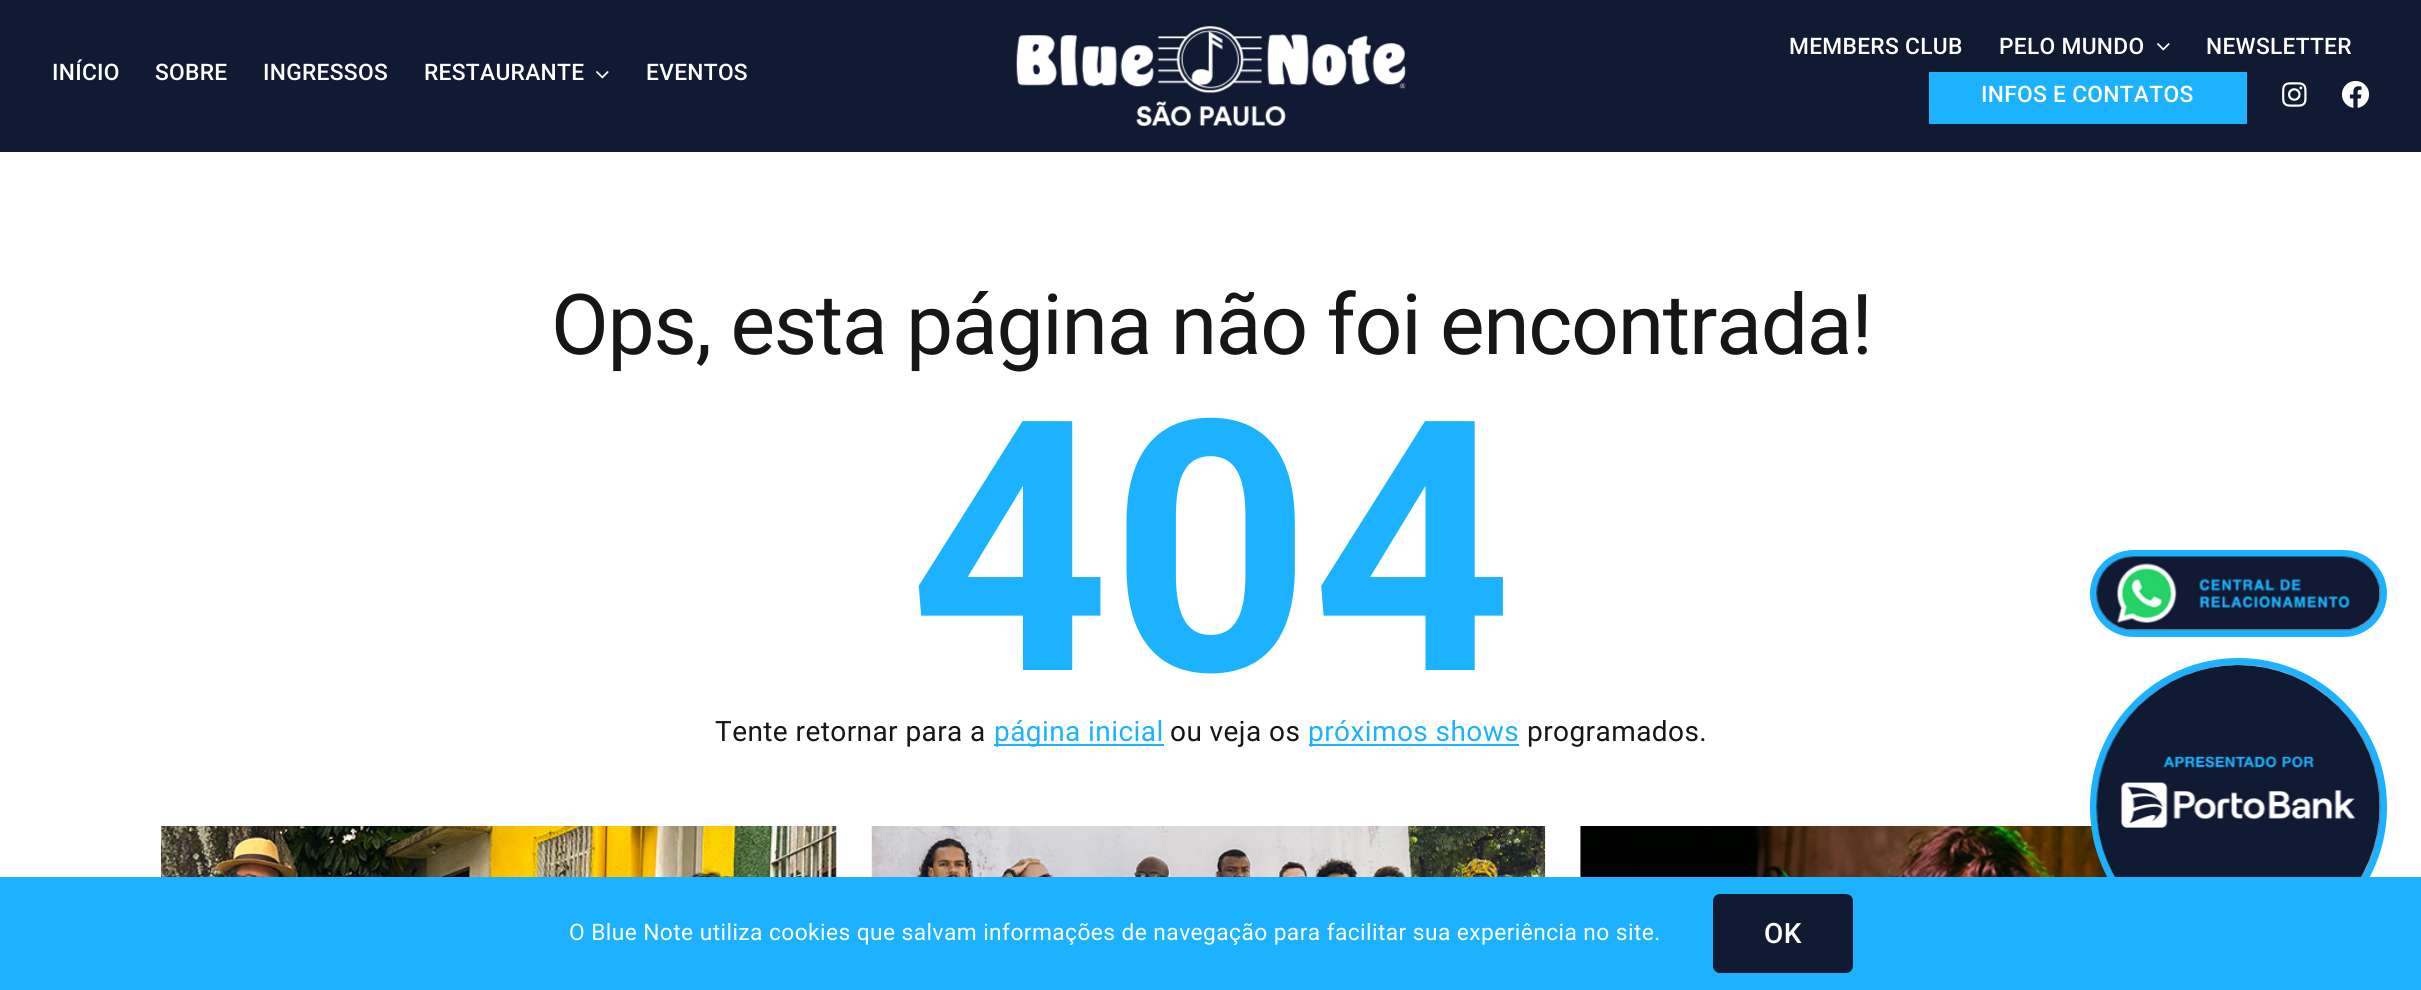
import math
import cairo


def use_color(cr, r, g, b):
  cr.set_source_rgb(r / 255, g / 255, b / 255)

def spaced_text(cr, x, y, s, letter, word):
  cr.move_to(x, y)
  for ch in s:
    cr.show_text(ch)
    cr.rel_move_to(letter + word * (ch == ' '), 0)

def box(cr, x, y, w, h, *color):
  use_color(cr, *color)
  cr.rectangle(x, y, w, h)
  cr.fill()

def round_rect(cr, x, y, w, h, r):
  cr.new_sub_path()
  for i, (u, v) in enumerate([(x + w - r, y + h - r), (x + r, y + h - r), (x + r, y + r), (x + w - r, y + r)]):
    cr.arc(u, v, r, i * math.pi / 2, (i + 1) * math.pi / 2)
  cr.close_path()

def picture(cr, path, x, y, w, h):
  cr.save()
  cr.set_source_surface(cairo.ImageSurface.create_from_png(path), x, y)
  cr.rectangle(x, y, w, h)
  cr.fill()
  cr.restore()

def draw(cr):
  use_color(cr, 255, 255, 255)
  cr.paint()
  box(cr, 0, 0, 2421, 152, 17, 26, 51)
  picture(cr, "img_01.png", 596, 71, 13, 8)
  picture(cr, "img_02.png", 1016, 26, 390, 100)
  picture(cr, "img_01.png", 2157, 43, 13, 8)
  box(cr, 1929, 72, 318, 52, 29, 178, 255)
  picture(cr, "img_03.png", 2282, 82, 25, 25)
  picture(cr, "img_04.png", 2341, 80, 29, 28)
  box(cr, 994, 744, 170, 2, 29, 178, 255)
  box(cr, 1309, 744, 210, 2, 29, 178, 255)
  picture(cr, "img_05.png", 161, 826, 676, 51)
  picture(cr, "img_06.png", 871, 826, 675, 51)
  picture(cr, "img_07.png", 1580, 826, 536, 51)
  round_rect(cr, 2093.5, 553.5, 290, 80, 40)
  cr.set_line_width(7)
  cr.stroke()
  picture(cr, "img_08.png", 2096, 556, 285, 75)
  round_rect(cr, 2093.5, 661.5, 290, 291, 145)
  cr.stroke()
  picture(cr, "img_09.png", 2096, 665, 285, 212)
  box(cr, 0, 877, 2421, 113, 29, 178, 255)
  use_color(cr, 17, 26, 51)
  round_rect(cr, 1713, 894, 140, 79, 7)
  cr.fill()
  cr.select_font_face("Roboto Medium")
  cr.set_font_size(22.75)
  use_color(cr, 255, 255, 255)
  spaced_text(cr, 52, 80, "INÍCIO", 0.3, 0)
  spaced_text(cr, 155, 80, "SOBRE", 0.3, 0)
  spaced_text(cr, 263, 80, "INGRESSOS", 0.3, 0)
  spaced_text(cr, 424, 80, "RESTAURANTE", 0.3, 0)
  spaced_text(cr, 646, 80, "EVENTOS", 0.3, 0)
  spaced_text(cr, 1789, 54, "MEMBERS CLUB", 0.3, 0)
  spaced_text(cr, 1999, 54, "PELO MUNDO", 0.3, 0)
  spaced_text(cr, 2206, 54, "NEWSLETTER", 0.3, 0)
  spaced_text(cr, 1981, 102, "INFOS E CONTATOS", 0.3, 0)
  cr.select_font_face("Roboto")
  cr.set_font_size(84)
  use_color(cr, 20, 22, 23)
  spaced_text(cr, 551, 354, "Ops, esta página não foi encontrada!", -1.25, 0)
  cr.select_font_face("Roboto", cairo.FONT_SLANT_NORMAL, cairo.FONT_WEIGHT_BOLD)
  cr.set_font_size(350)
  use_color(cr, 29, 178, 255)
  spaced_text(cr, 909, 670, "404", 0.42, 0)
  cr.select_font_face("Roboto")
  cr.set_font_size(28)
  use_color(cr, 20, 22, 23)
  spaced_text(cr, 715, 741, "Tente retornar para a", 0.42, 0)
  use_color(cr, 29, 178, 255)
  spaced_text(cr, 994, 741, "página inicial", 0.42, 0)
  use_color(cr, 20, 22, 23)
  spaced_text(cr, 1170, 741, "ou veja os", 0.42, 0)
  use_color(cr, 29, 178, 255)
  spaced_text(cr, 1308, 741, "próximos shows", 0.42, 0)
  use_color(cr, 20, 22, 23)
  spaced_text(cr, 1527, 741, "programados.", 0.42, 0)
  cr.set_font_size(22.75)
  use_color(cr, 255, 255, 255)
  spaced_text(cr, 569, 940, "O Blue Note utiliza cookies que salvam informações de navegação para facilitar sua experiência no site.", 0.42, 0)
  cr.select_font_face("Roboto Medium")
  cr.set_font_size(28)
  spaced_text(cr, 1764, 943, "OK", 0.42, 0)


surface = cairo.ImageSurface(cairo.FORMAT_RGB24, 2421, 990)
cr = cairo.Context(surface)
options = cairo.FontOptions()
options.set_hint_metrics(cairo.HINT_METRICS_OFF)
options.set_hint_style(cairo.HINT_STYLE_NONE)
cr.set_font_options(options)
cr.set_miter_limit(4)
draw(cr)
surface.write_to_png("out.png")
